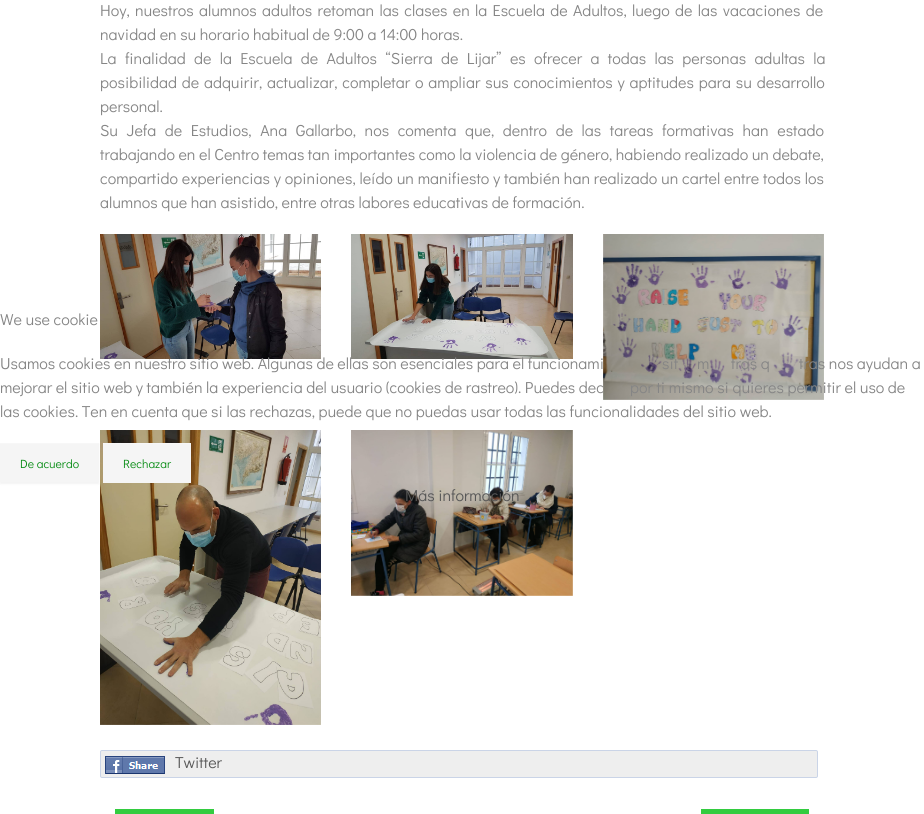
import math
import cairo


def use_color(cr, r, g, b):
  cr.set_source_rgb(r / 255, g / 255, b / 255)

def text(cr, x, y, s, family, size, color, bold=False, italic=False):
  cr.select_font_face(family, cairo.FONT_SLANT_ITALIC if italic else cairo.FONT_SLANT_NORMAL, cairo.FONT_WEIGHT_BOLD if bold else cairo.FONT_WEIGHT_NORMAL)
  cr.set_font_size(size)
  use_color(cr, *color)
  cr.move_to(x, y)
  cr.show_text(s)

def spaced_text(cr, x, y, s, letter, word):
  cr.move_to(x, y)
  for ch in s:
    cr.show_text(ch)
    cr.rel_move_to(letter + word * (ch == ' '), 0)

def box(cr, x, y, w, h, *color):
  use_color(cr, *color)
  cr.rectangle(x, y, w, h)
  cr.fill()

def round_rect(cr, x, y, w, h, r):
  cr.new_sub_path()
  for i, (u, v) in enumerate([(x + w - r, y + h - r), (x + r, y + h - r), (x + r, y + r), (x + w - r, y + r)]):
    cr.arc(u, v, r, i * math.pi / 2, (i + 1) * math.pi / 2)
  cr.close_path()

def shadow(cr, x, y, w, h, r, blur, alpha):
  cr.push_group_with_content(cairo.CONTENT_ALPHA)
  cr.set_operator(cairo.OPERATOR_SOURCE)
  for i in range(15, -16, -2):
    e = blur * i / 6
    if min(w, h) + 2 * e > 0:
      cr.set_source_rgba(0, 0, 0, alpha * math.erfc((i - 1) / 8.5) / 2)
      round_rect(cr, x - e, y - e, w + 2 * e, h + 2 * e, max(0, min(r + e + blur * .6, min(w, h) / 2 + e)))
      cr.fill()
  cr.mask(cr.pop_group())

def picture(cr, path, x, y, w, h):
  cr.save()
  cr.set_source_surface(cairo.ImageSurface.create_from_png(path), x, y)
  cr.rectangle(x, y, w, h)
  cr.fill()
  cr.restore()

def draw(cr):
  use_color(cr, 255, 255, 255)
  cr.paint()
  picture(cr, "img_01.png", 100, 234, 221, 125)
  picture(cr, "img_02.png", 351, 234, 222, 125)
  picture(cr, "img_03.png", 603, 234, 221, 166)
  picture(cr, "img_04.png", 100, 430, 221, 295)
  picture(cr, "img_05.png", 351, 430, 222, 166)
  use_color(cr, 238, 238, 238)
  round_rect(cr, 100.5, 750.5, 717, 27, 1.5)
  cr.fill_preserve()
  use_color(cr, 202, 212, 231)
  cr.set_line_width(1)
  cr.stroke()
  picture(cr, "img_06.png", 105, 756, 60, 18)
  box(cr, 115, 809, 99, 5, 51, 204, 64)
  box(cr, 701, 809, 108, 5, 51, 204, 64)
  use_color(cr, 0, 0, 0)
  shadow(cr, 0, 444, 99, 40, 0, 1, 0.05)
  box(cr, 0, 444, 99, 38, 245, 245, 245)
  box(cr, 0, 443, 99, 1, 247, 247, 247)
  box(cr, 103, 444, 88, 39, 245, 245, 245)
  box(cr, 103, 443, 88, 1, 247, 247, 247)
  cr.select_font_face("Didact Gothic")
  cr.set_font_size(16)
  use_color(cr, 133, 133, 133)
  spaced_text(cr, 100, 16, "Hoy, nuestros alumnos adultos retoman las clases en la Escuela de Adultos, luego de las vacaciones de", 0, 1.75)
  text(cr, 100, 40, "navidad en su horario habitual de 9:00 a 14:00 horas.", "Didact Gothic", 16, (133, 133, 133))
  spaced_text(cr, 100, 64, "La finalidad de la Escuela de Adultos “Sierra de Lijar” es ofrecer a todas las personas adultas la", 0, 4.75)
  spaced_text(cr, 100, 88, "posibilidad de adquirir, actualizar, completar o ampliar sus conocimientos y aptitudes para su desarrollo", 0, 1.25)
  text(cr, 100, 112, "personal.", "Didact Gothic", 16, (133, 133, 133))
  spaced_text(cr, 100, 136, "Su Jefa de Estudios, Ana Gallarbo, nos comenta que, dentro de las tareas formativas han estado", 0, 5)
  text(cr, 100, 160, "trabajando en el Centro temas tan importantes como la violencia de género, habiendo realizado un debate,", "Didact Gothic", 16, (133, 133, 133))
  spaced_text(cr, 100, 184, "compartido experiencias y opiniones, leído un manifiesto y también han realizado un cartel entre todos los", 0, 0.25)
  text(cr, 100, 208, "alumnos que han asistido, entre otras labores educativas de formación.", "Didact Gothic", 16, (133, 133, 133))
  text(cr, 175, 768, "Twitter", "Didact Gothic", 16, (87, 87, 87))
  text(cr, 0, 325, "We use cookie", "Didact Gothic", 16, (133, 133, 133))
  text(cr, 0, 369, "Usamos cookies en nuestro sitio web. Algunas de ellas son esenciales para el funcionami", "Didact Gothic", 16, (133, 133, 133))
  text(cr, 662, 369, "sit", "Didact Gothic", 16, (133, 133, 133))
  text(cr, 697, 369, "m", "Didact Gothic", 16, (133, 133, 133))
  text(cr, 731, 369, "tras q", "Didact Gothic", 16, (133, 133, 133))
  text(cr, 799, 369, "tras nos ayudan a", "Didact Gothic", 16, (133, 133, 133))
  text(cr, 0, 393, "mejorar el sitio web y también la experiencia del usuario (cookies de rastreo). Puedes dec", "Didact Gothic", 16, (133, 133, 133))
  text(cr, 630, 393, "por ti mismo si quieres permitir el uso de", "Didact Gothic", 16, (133, 133, 133))
  text(cr, 0, 417, "las cookies. Ten en cuenta que si las rechazas, puede que no puedas usar todas las funcionalidades del sitio web.", "Didact Gothic", 16, (133, 133, 133))
  text(cr, 20, 468, "De acuerdo", "Didact Gothic", 12, (7, 140, 20))
  text(cr, 123, 468, "Rechazar", "Didact Gothic", 12, (7, 140, 20))
  text(cr, 405, 501, "Más información", "Didact Gothic", 16, (87, 87, 87))


surface = cairo.ImageSurface(cairo.FORMAT_RGB24, 924, 814)
cr = cairo.Context(surface)
options = cairo.FontOptions()
options.set_hint_metrics(cairo.HINT_METRICS_OFF)
options.set_hint_style(cairo.HINT_STYLE_NONE)
cr.set_font_options(options)
cr.set_miter_limit(4)
draw(cr)
surface.write_to_png("out.png")
